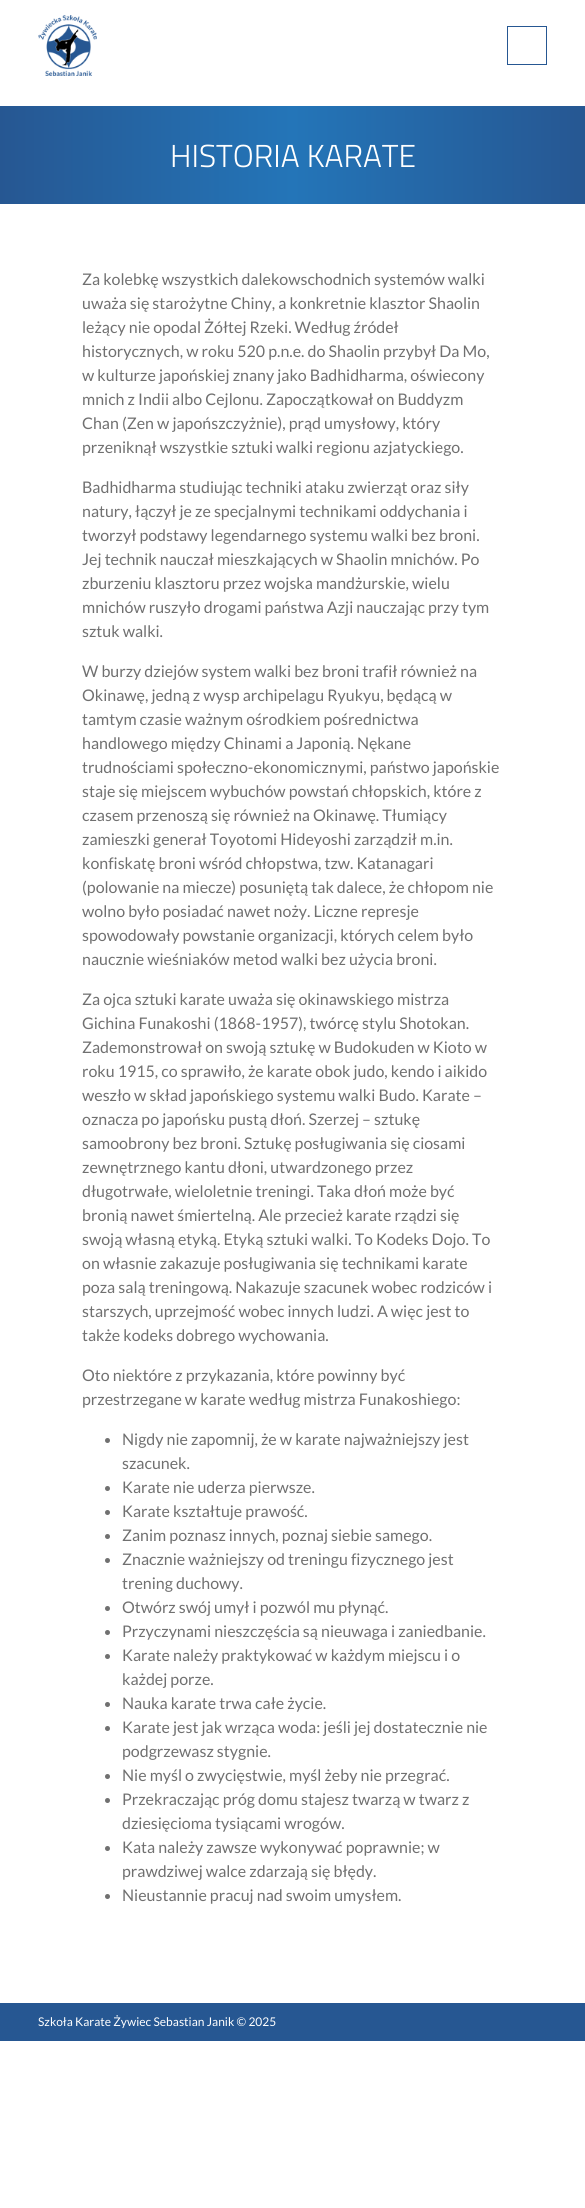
import math
import cairo


def use_color(cr, r, g, b):
  cr.set_source_rgb(r / 255, g / 255, b / 255)

def text(cr, x, y, s, family, size, color, bold=False, italic=False):
  cr.select_font_face(family, cairo.FONT_SLANT_ITALIC if italic else cairo.FONT_SLANT_NORMAL, cairo.FONT_WEIGHT_BOLD if bold else cairo.FONT_WEIGHT_NORMAL)
  cr.set_font_size(size)
  use_color(cr, *color)
  cr.move_to(x, y)
  cr.show_text(s)

def box(cr, x, y, w, h, *color):
  use_color(cr, *color)
  cr.rectangle(x, y, w, h)
  cr.fill()

def picture(cr, path, x, y, w, h):
  cr.save()
  cr.set_source_surface(cairo.ImageSurface.create_from_png(path), x, y)
  cr.rectangle(x, y, w, h)
  cr.fill()
  cr.restore()

def draw(cr):
  use_color(cr, 255, 255, 255)
  cr.paint()
  picture(cr, "img_01.png", 38, 15, 59, 61)
  cr.rectangle(507.5, 26.5, 39, 38)
  use_color(cr, 38, 87, 146)
  cr.set_line_width(1)
  cr.stroke()
  gradient = cairo.LinearGradient(0, 155, 585, 155)
  gradient.add_color_stop_rgba(0, 0.149, 0.341, 0.573, 1)
  gradient.add_color_stop_rgba(0.5, 0.141, 0.459, 0.722, 1)
  gradient.add_color_stop_rgba(1, 0.149, 0.341, 0.573, 1)
  cr.set_source(gradient)
  cr.rectangle(0, 106, 585, 98)
  cr.fill()
  use_color(cr, 112, 112, 112)
  cr.arc(107.5, 1440.5, 2.5, 0, 2 * math.pi)
  cr.fill()
  cr.arc(107.5, 1488.5, 2.5, 0, 2 * math.pi)
  cr.fill()
  cr.arc(107.5, 1512.5, 2.5, 0, 2 * math.pi)
  cr.fill()
  cr.arc(107.5, 1536.5, 2.5, 0, 2 * math.pi)
  cr.fill()
  cr.arc(107.5, 1560.5, 2.5, 0, 2 * math.pi)
  cr.fill()
  cr.arc(107.5, 1608.5, 2.5, 0, 2 * math.pi)
  cr.fill()
  cr.arc(107.5, 1632.5, 2.5, 0, 2 * math.pi)
  cr.fill()
  cr.arc(107.5, 1656.5, 2.5, 0, 2 * math.pi)
  cr.fill()
  cr.arc(107.5, 1704.5, 2.5, 0, 2 * math.pi)
  cr.fill()
  cr.arc(107.5, 1728.5, 2.5, 0, 2 * math.pi)
  cr.fill()
  cr.arc(107.5, 1776.5, 2.5, 0, 2 * math.pi)
  cr.fill()
  cr.arc(107.5, 1800.5, 2.5, 0, 2 * math.pi)
  cr.fill()
  cr.arc(107.5, 1848.5, 2.5, 0, 2 * math.pi)
  cr.fill()
  cr.arc(107.5, 1896.5, 2.5, 0, 2 * math.pi)
  cr.fill()
  box(cr, 0, 2003, 585, 38, 38, 87, 146)
  text(cr, 170, 167, "HISTORIA KARATE", "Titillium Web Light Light", 31.75, (255, 255, 255))
  text(cr, 82, 285, "Za kolebkę wszystkich dalekowschodnich systemów walki", "Lato", 16, (112, 112, 112))
  text(cr, 82, 309, "uważa się starożytne Chiny, a konkretnie klasztor Shaolin", "Lato", 16, (112, 112, 112))
  text(cr, 82, 333, "leżący nie opodal Żółtej Rzeki. Według źródeł", "Lato", 16, (112, 112, 112))
  text(cr, 82, 357, "historycznych, w roku 520 p.n.e. do Shaolin przybył Da Mo,", "Lato", 16, (112, 112, 112))
  text(cr, 82, 381, "w kulturze japońskiej znany jako Badhidharma, oświecony", "Lato", 16, (112, 112, 112))
  text(cr, 82, 405, "mnich z Indii albo Cejlonu. Zapoczątkował on Buddyzm", "Lato", 16, (112, 112, 112))
  text(cr, 82, 429, "Chan (Zen w japońszczyżnie), prąd umysłowy, który", "Lato", 16, (112, 112, 112))
  text(cr, 82, 453, "przeniknął wszystkie sztuki walki regionu azjatyckiego.", "Lato", 16, (112, 112, 112))
  text(cr, 82, 493, "Badhidharma studiując techniki ataku zwierząt oraz siły", "Lato", 16, (112, 112, 112))
  text(cr, 82, 517, "natury, łączył je ze specjalnymi technikami oddychania i", "Lato", 16, (112, 112, 112))
  text(cr, 82, 541, "tworzył podstawy legendarnego systemu walki bez broni.", "Lato", 16, (112, 112, 112))
  text(cr, 82, 565, "Jej technik nauczał mieszkających w Shaolin mnichów. Po", "Lato", 16, (112, 112, 112))
  text(cr, 82, 589, "zburzeniu klasztoru przez wojska mandżurskie, wielu", "Lato", 16, (112, 112, 112))
  text(cr, 82, 613, "mnichów ruszyło drogami państwa Azji nauczając przy tym", "Lato", 16, (112, 112, 112))
  text(cr, 82, 637, "sztuk walki.", "Lato", 16, (112, 112, 112))
  text(cr, 82, 677, "W burzy dziejów system walki bez broni trafił również na", "Lato", 16, (112, 112, 112))
  text(cr, 82, 701, "Okinawę, jedną z wysp archipelagu Ryukyu, będącą w", "Lato", 16, (112, 112, 112))
  text(cr, 82, 725, "tamtym czasie ważnym ośrodkiem pośrednictwa", "Lato", 16, (112, 112, 112))
  text(cr, 82, 749, "handlowego między Chinami a Japonią. Nękane", "Lato", 16, (112, 112, 112))
  text(cr, 82, 773, "trudnościami społeczno-ekonomicznymi, państwo japońskie", "Lato", 16, (112, 112, 112))
  text(cr, 82, 797, "staje się miejscem wybuchów powstań chłopskich, które z", "Lato", 16, (112, 112, 112))
  text(cr, 82, 821, "czasem przenoszą się również na Okinawę. Tłumiący", "Lato", 16, (112, 112, 112))
  text(cr, 82, 845, "zamieszki generał Toyotomi Hideyoshi zarządził m.in.", "Lato", 16, (112, 112, 112))
  text(cr, 82, 869, "konfiskatę broni wśród chłopstwa, tzw. Katanagari", "Lato", 16, (112, 112, 112))
  text(cr, 82, 893, "(polowanie na miecze) posuniętą tak dalece, że chłopom nie", "Lato", 16, (112, 112, 112))
  text(cr, 82, 917, "wolno było posiadać nawet noży. Liczne represje", "Lato", 16, (112, 112, 112))
  text(cr, 82, 941, "spowodowały powstanie organizacji, których celem było", "Lato", 16, (112, 112, 112))
  text(cr, 82, 965, "naucznie wieśniaków metod walki bez użycia broni.", "Lato", 16, (112, 112, 112))
  text(cr, 82, 1005, "Za ojca sztuki karate uważa się okinawskiego mistrza", "Lato", 16, (112, 112, 112))
  text(cr, 82, 1029, "Gichina Funakoshi (1868-1957), twórcę stylu Shotokan.", "Lato", 16, (112, 112, 112))
  text(cr, 82, 1053, "Zademonstrował on swoją sztukę w Budokuden w Kioto w", "Lato", 16, (112, 112, 112))
  text(cr, 82, 1077, "roku 1915, co sprawiło, że karate obok judo, kendo i aikido", "Lato", 16, (112, 112, 112))
  text(cr, 82, 1101, "weszło w skład japońskiego systemu walki Budo. Karate –", "Lato", 16, (112, 112, 112))
  text(cr, 82, 1125, "oznacza po japońsku pustą dłoń. Szerzej – sztukę", "Lato", 16, (112, 112, 112))
  text(cr, 82, 1149, "samoobrony bez broni. Sztukę posługiwania się ciosami", "Lato", 16, (112, 112, 112))
  text(cr, 82, 1173, "zewnętrznego kantu dłoni, utwardzonego przez", "Lato", 16, (112, 112, 112))
  text(cr, 82, 1197, "długotrwałe, wieloletnie treningi. Taka dłoń może być", "Lato", 16, (112, 112, 112))
  text(cr, 82, 1221, "bronią nawet śmiertelną. Ale przecież karate rządzi się", "Lato", 16, (112, 112, 112))
  text(cr, 82, 1245, "swoją własną etyką. Etyką sztuki walki. To Kodeks Dojo. To", "Lato", 16, (112, 112, 112))
  text(cr, 82, 1269, "on własnie zakazuje posługiwania się technikami karate", "Lato", 16, (112, 112, 112))
  text(cr, 82, 1293, "poza salą treningową. Nakazuje szacunek wobec rodziców i", "Lato", 16, (112, 112, 112))
  text(cr, 82, 1317, "starszych, uprzejmość wobec innych ludzi. A więc jest to", "Lato", 16, (112, 112, 112))
  text(cr, 82, 1341, "także kodeks dobrego wychowania.", "Lato", 16, (112, 112, 112))
  text(cr, 82, 1381, "Oto niektóre z przykazania, które powinny być", "Lato", 16, (112, 112, 112))
  text(cr, 82, 1405, "przestrzegane w karate według mistrza Funakoshiego:", "Lato", 16, (112, 112, 112))
  text(cr, 122, 1445, "Nigdy nie zapomnij, że w karate najważniejszy jest", "Lato", 16, (112, 112, 112))
  text(cr, 122, 1469, "szacunek.", "Lato", 16, (112, 112, 112))
  text(cr, 122, 1493, "Karate nie uderza pierwsze.", "Lato", 16, (112, 112, 112))
  text(cr, 122, 1517, "Karate kształtuje prawość.", "Lato", 16, (112, 112, 112))
  text(cr, 122, 1541, "Zanim poznasz innych, poznaj siebie samego.", "Lato", 16, (112, 112, 112))
  text(cr, 122, 1565, "Znacznie ważniejszy od treningu fizycznego jest", "Lato", 16, (112, 112, 112))
  text(cr, 122, 1589, "trening duchowy.", "Lato", 16, (112, 112, 112))
  text(cr, 122, 1613, "Otwórz swój umył i pozwól mu płynąć.", "Lato", 16, (112, 112, 112))
  text(cr, 122, 1637, "Przyczynami nieszczęścia są nieuwaga i zaniedbanie.", "Lato", 16, (112, 112, 112))
  text(cr, 122, 1661, "Karate należy praktykować w każdym miejscu i o", "Lato", 16, (112, 112, 112))
  text(cr, 122, 1685, "każdej porze.", "Lato", 16, (112, 112, 112))
  text(cr, 122, 1709, "Nauka karate trwa całe życie.", "Lato", 16, (112, 112, 112))
  text(cr, 122, 1733, "Karate jest jak wrząca woda: jeśli jej dostatecznie nie", "Lato", 16, (112, 112, 112))
  text(cr, 122, 1757, "podgrzewasz stygnie.", "Lato", 16, (112, 112, 112))
  text(cr, 122, 1781, "Nie myśl o zwycięstwie, myśl żeby nie przegrać.", "Lato", 16, (112, 112, 112))
  text(cr, 122, 1805, "Przekraczając próg domu stajesz twarzą w twarz z", "Lato", 16, (112, 112, 112))
  text(cr, 122, 1829, "dziesięcioma tysiącami wrogów.", "Lato", 16, (112, 112, 112))
  text(cr, 122, 1853, "Kata należy zawsze wykonywać poprawnie; w", "Lato", 16, (112, 112, 112))
  text(cr, 122, 1877, "prawdziwej walce zdarzają się błędy.", "Lato", 16, (112, 112, 112))
  text(cr, 122, 1901, "Nieustannie pracuj nad swoim umysłem.", "Lato", 16, (112, 112, 112))
  text(cr, 38, 2026, "Szkoła Karate Żywiec Sebastian Janik © 2025", "Lato", 12, (255, 255, 255))


surface = cairo.ImageSurface(cairo.FORMAT_RGB24, 585, 2208)
cr = cairo.Context(surface)
options = cairo.FontOptions()
options.set_hint_metrics(cairo.HINT_METRICS_OFF)
options.set_hint_style(cairo.HINT_STYLE_NONE)
cr.set_font_options(options)
cr.set_miter_limit(4)
draw(cr)
surface.write_to_png("out.png")
